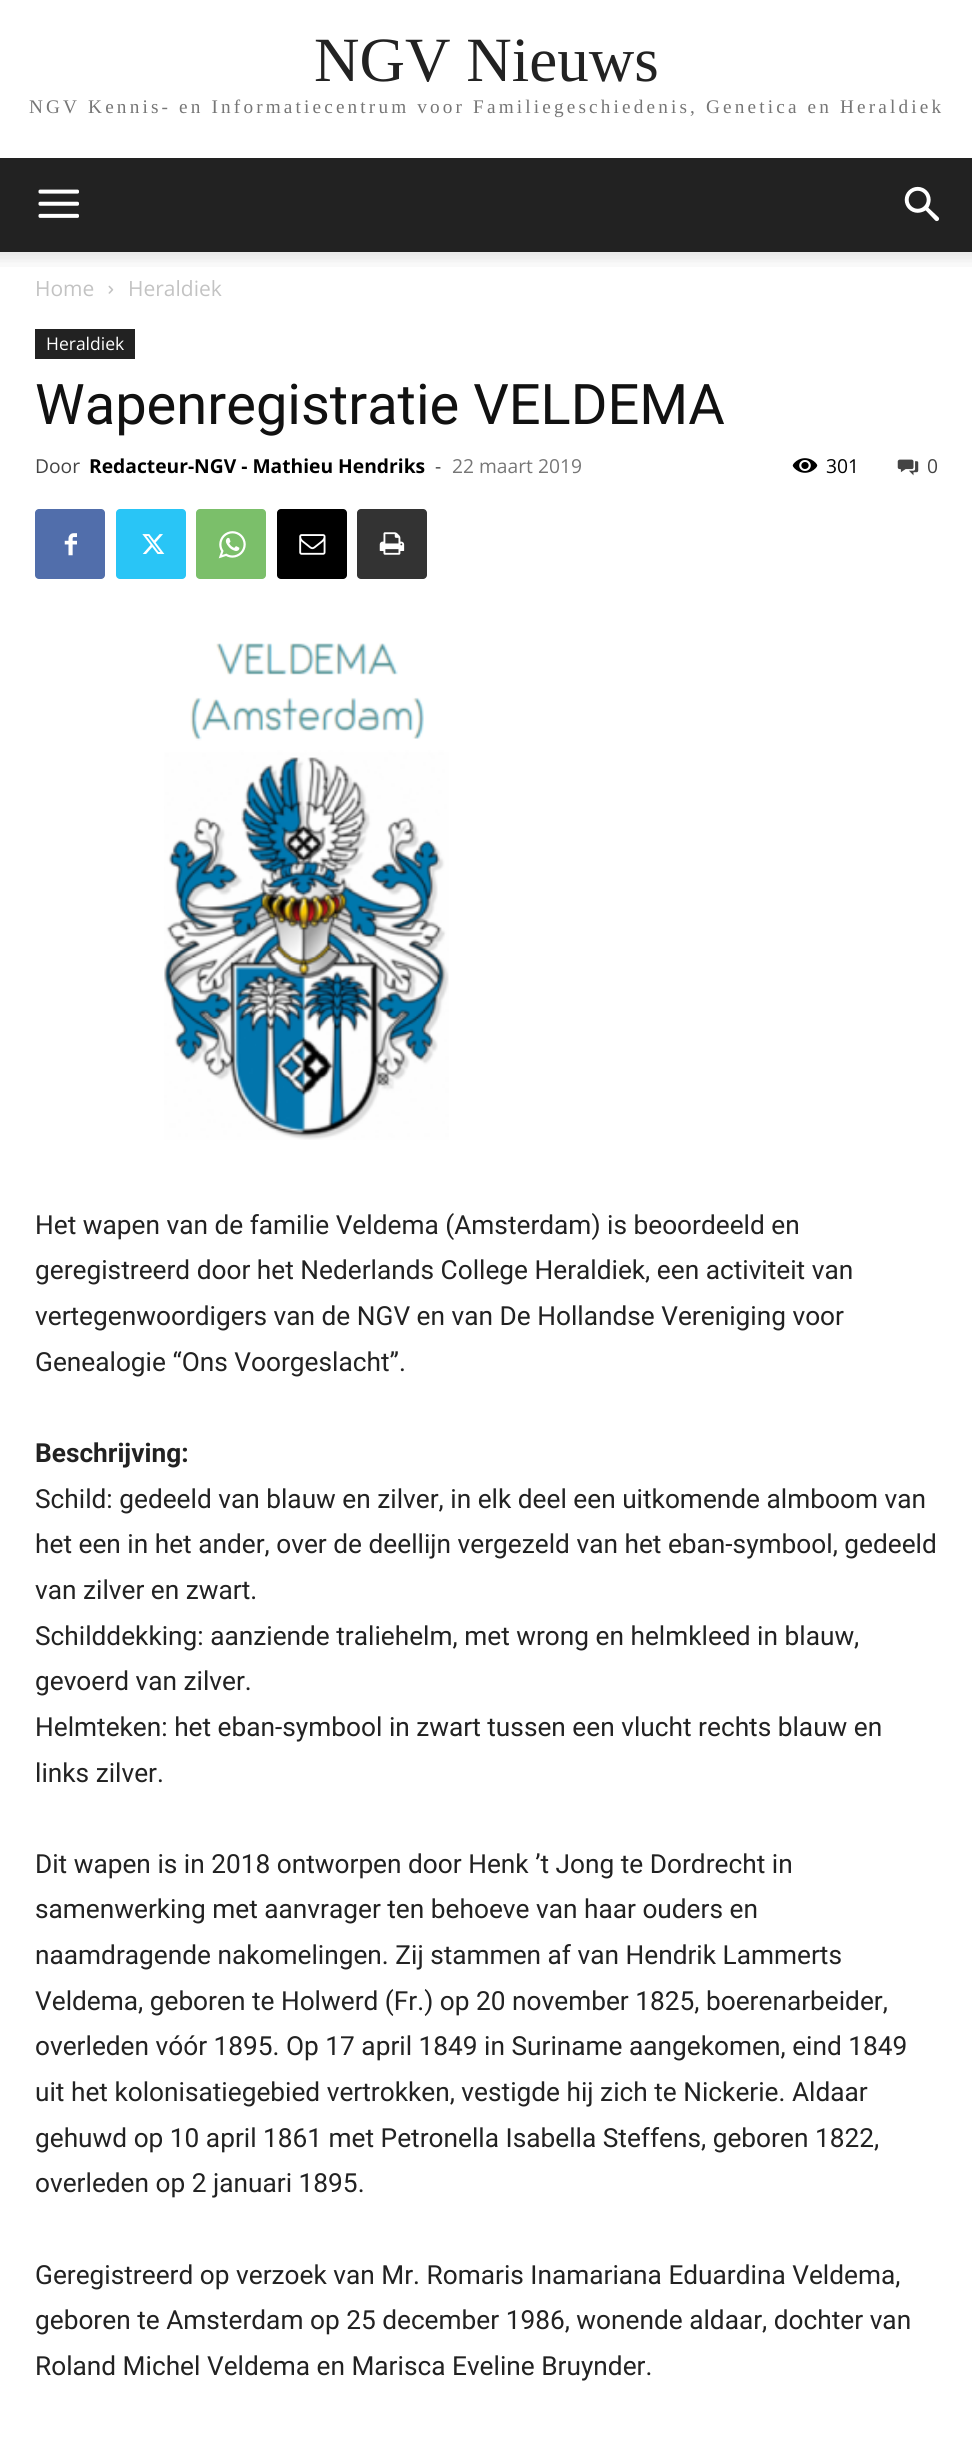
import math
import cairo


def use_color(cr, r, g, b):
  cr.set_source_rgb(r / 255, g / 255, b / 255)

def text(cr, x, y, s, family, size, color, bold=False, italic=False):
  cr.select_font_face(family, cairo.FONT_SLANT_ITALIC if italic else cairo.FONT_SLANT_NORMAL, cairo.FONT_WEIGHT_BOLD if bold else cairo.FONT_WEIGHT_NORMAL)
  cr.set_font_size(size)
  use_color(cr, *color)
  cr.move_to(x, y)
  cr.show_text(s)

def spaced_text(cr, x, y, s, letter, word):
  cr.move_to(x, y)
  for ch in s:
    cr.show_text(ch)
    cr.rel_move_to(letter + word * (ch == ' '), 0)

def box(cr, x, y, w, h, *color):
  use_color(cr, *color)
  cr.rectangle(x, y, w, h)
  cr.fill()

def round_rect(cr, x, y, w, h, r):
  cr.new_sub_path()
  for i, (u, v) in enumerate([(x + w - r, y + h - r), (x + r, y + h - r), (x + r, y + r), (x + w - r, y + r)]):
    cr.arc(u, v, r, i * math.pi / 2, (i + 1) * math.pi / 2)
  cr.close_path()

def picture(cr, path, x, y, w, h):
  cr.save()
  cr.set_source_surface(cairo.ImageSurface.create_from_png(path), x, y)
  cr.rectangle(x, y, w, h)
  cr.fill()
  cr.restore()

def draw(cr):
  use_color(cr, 255, 255, 255)
  cr.paint()
  box(cr, 0, 158, 972, 94, 34, 34, 34)
  picture(cr, "img_01.png", 38, 189, 41, 29)
  picture(cr, "img_02.png", 904, 186, 36, 36)
  picture(cr, "img_03.png", 0, 252, 972, 15)
  picture(cr, "img_04.png", 108, 285, 6, 9)
  box(cr, 35, 329, 100, 30, 34, 34, 34)
  picture(cr, "img_05.png", 792, 458, 26, 15)
  picture(cr, "img_06.png", 897, 459, 22, 17)
  use_color(cr, 81, 110, 171)
  round_rect(cr, 35, 509, 70, 70, 4)
  cr.fill()
  picture(cr, "img_07.png", 64, 533, 13, 23)
  use_color(cr, 41, 197, 246)
  round_rect(cr, 116, 509, 70, 70, 4)
  cr.fill()
  picture(cr, "img_08.png", 142, 534, 23, 20)
  use_color(cr, 123, 191, 106)
  round_rect(cr, 196, 509, 70, 70, 4)
  cr.fill()
  picture(cr, "img_09.png", 218, 531, 28, 28)
  use_color(cr, 0, 0, 0)
  round_rect(cr, 277, 509, 70, 70, 4)
  cr.fill()
  picture(cr, "img_10.png", 299, 534, 27, 21)
  use_color(cr, 51, 51, 51)
  round_rect(cr, 357, 509, 70, 70, 4)
  cr.fill()
  picture(cr, "img_11.png", 379, 532, 26, 23)
  picture(cr, "img_12.png", 164, 643, 285, 497)
  text(cr, 314, 81, "NGV Nieuws", "Liberation Serif", 63, (34, 34, 34))
  cr.set_font_size(19.25)
  use_color(cr, 118, 118, 118)
  spaced_text(cr, 29, 113, "NGV Kennis- en Informatiecentrum voor Familiegeschiedenis, Genetica en Heraldiek", 3.15, 0)
  text(cr, 35, 296, "Home", "Open Sans", 21, (195, 195, 195))
  text(cr, 128, 296, "Heraldiek", "Open Sans", 21, (195, 195, 195))
  text(cr, 46, 350, "Heraldiek", "Open Sans", 17.5, (255, 255, 255))
  text(cr, 35, 424, "Wapenregistratie VELDEMA", "Roboto", 56, (17, 17, 17))
  text(cr, 35, 473, "Door", "Open Sans", 19.25, (68, 68, 68))
  text(cr, 89, 473, "Redacteur-NGV - Mathieu Hendriks", "Open Sans", 19.25, (0, 0, 0), bold=True)
  text(cr, 435, 473, "-", "Open Sans", 19.25, (68, 68, 68))
  text(cr, 452, 473, "22 maart 2019", "Open Sans", 19.25, (118, 118, 118))
  text(cr, 826, 473, "301", "Open Sans", 19.25, (0, 0, 0))
  text(cr, 927, 473, "0", "Open Sans", 19.25, (68, 68, 68))
  text(cr, 35, 1234, "Het wapen van de familie Veldema (Amsterdam) is beoordeeld en", "Roboto", 26.25, (34, 34, 34))
  text(cr, 35, 1279, "geregistreerd door het Nederlands College Heraldiek, een activiteit van", "Roboto", 26.25, (34, 34, 34))
  text(cr, 35, 1325, "vertegenwoordigers van de NGV en van De Hollandse Vereniging voor", "Roboto", 26.25, (34, 34, 34))
  text(cr, 35, 1371, "Genealogie “Ons Voorgeslacht”.", "Roboto", 26.25, (34, 34, 34))
  text(cr, 35, 1462, "Beschrijving:", "Roboto", 26.25, (34, 34, 34), bold=True)
  text(cr, 35, 1508, "Schild: gedeeld van blauw en zilver, in elk deel een uitkomende almboom van", "Roboto", 26.25, (34, 34, 34))
  text(cr, 35, 1553, "het een in het ander, over de deellijn vergezeld van het eban-symbool, gedeeld", "Roboto", 26.25, (34, 34, 34))
  text(cr, 35, 1599, "van zilver en zwart.", "Roboto", 26.25, (34, 34, 34))
  text(cr, 35, 1645, "Schilddekking: aanziende traliehelm, met wrong en helmkleed in blauw,", "Roboto", 26.25, (34, 34, 34))
  text(cr, 35, 1690, "gevoerd van zilver.", "Roboto", 26.25, (34, 34, 34))
  text(cr, 35, 1736, "Helmteken: het eban-symbool in zwart tussen een vlucht rechts blauw en", "Roboto", 26.25, (34, 34, 34))
  text(cr, 35, 1782, "links zilver.", "Roboto", 26.25, (34, 34, 34))
  text(cr, 35, 1873, "Dit wapen is in 2018 ontworpen door Henk ’t Jong te Dordrecht in", "Roboto", 26.25, (34, 34, 34))
  text(cr, 35, 1918, "samenwerking met aanvrager ten behoeve van haar ouders en", "Roboto", 26.25, (34, 34, 34))
  text(cr, 35, 1964, "naamdragende nakomelingen. Zij stammen af van Hendrik Lammerts", "Roboto", 26.25, (34, 34, 34))
  text(cr, 35, 2010, "Veldema, geboren te Holwerd (Fr.) op 20 november 1825, boerenarbeider,", "Roboto", 26.25, (34, 34, 34))
  text(cr, 35, 2055, "overleden vóór 1895. Op 17 april 1849 in Suriname aangekomen, eind 1849", "Roboto", 26.25, (34, 34, 34))
  text(cr, 35, 2101, "uit het kolonisatiegebied vertrokken, vestigde hij zich te Nickerie. Aldaar", "Roboto", 26.25, (34, 34, 34))
  text(cr, 35, 2147, "gehuwd op 10 april 1861 met Petronella Isabella Steffens, geboren 1822,", "Roboto", 26.25, (34, 34, 34))
  text(cr, 35, 2192, "overleden op 2 januari 1895.", "Roboto", 26.25, (34, 34, 34))
  text(cr, 35, 2284, "Geregistreerd op verzoek van Mr. Romaris Inamariana Eduardina Veldema,", "Roboto", 26.25, (34, 34, 34))
  text(cr, 35, 2329, "geboren te Amsterdam op 25 december 1986, wonende aldaar, dochter van", "Roboto", 26.25, (34, 34, 34))
  text(cr, 35, 2375, "Roland Michel Veldema en Marisca Eveline Bruynder.", "Roboto", 26.25, (34, 34, 34))


surface = cairo.ImageSurface(cairo.FORMAT_RGB24, 972, 2449)
cr = cairo.Context(surface)
options = cairo.FontOptions()
options.set_hint_metrics(cairo.HINT_METRICS_OFF)
options.set_hint_style(cairo.HINT_STYLE_NONE)
cr.set_font_options(options)
cr.set_miter_limit(4)
draw(cr)
surface.write_to_png("out.png")
